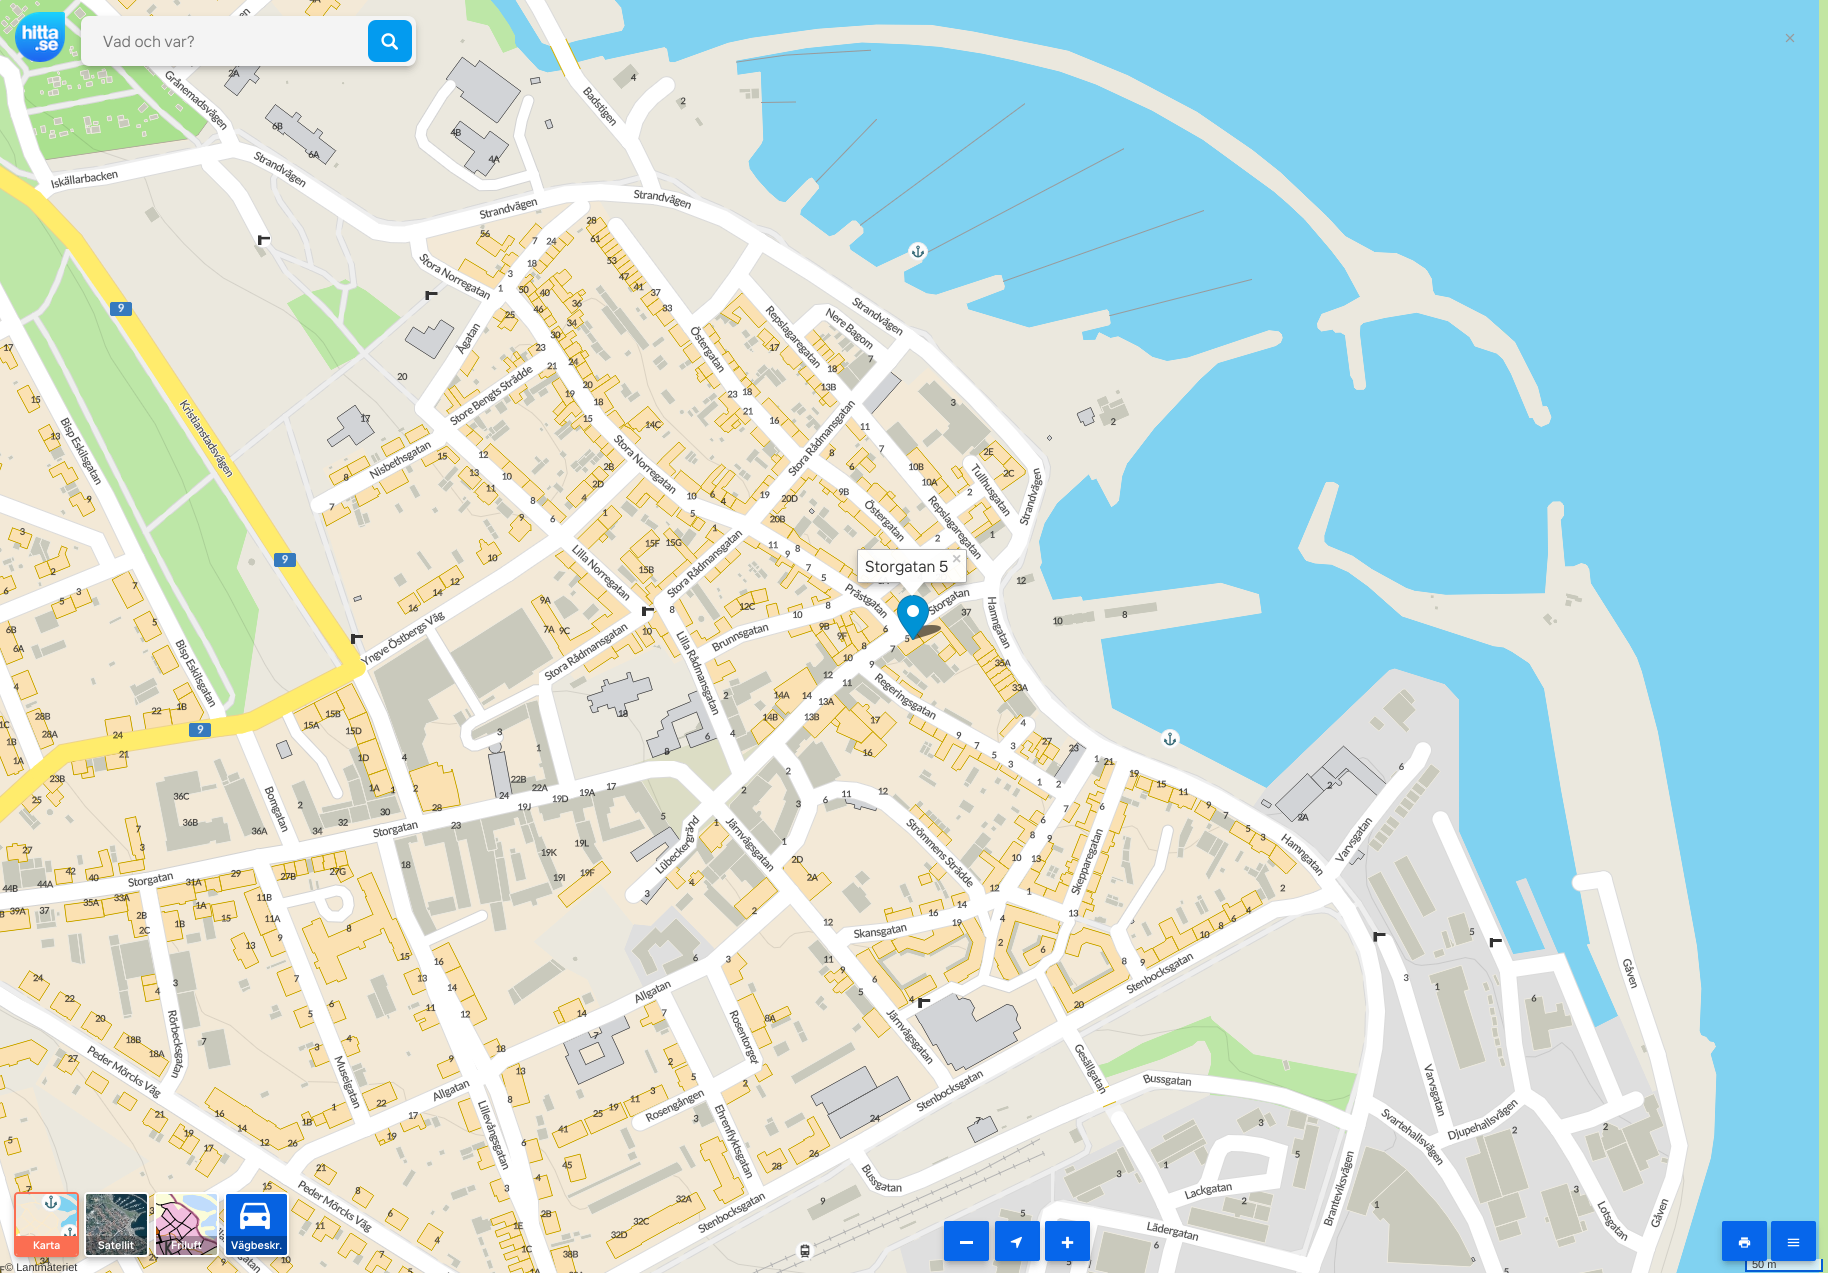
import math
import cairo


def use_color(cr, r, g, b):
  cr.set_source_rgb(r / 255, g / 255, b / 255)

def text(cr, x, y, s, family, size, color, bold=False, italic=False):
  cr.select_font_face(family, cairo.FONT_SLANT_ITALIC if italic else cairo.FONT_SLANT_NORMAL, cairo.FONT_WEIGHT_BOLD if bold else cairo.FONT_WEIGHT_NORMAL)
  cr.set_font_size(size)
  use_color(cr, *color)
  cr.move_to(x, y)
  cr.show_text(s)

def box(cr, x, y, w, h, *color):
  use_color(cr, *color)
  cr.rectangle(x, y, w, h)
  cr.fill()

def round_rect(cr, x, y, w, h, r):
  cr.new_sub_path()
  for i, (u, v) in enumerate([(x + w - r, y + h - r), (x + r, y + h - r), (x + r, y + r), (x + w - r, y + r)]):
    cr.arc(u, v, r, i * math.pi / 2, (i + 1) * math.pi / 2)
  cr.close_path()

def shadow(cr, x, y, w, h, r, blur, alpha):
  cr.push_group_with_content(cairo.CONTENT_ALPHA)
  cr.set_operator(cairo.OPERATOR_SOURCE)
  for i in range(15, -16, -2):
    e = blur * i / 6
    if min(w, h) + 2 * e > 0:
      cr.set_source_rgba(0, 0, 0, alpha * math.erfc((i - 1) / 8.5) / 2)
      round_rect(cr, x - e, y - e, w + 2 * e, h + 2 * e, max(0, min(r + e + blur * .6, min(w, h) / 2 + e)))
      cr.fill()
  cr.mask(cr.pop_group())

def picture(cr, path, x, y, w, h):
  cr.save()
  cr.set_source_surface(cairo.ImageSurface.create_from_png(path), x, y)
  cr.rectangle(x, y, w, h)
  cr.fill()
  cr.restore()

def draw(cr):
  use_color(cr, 255, 255, 255)
  cr.paint()
  picture(cr, "img_12.png", 0, 0, 27, 249)
  picture(cr, "img_13.png", 27, 0, 256, 249)
  picture(cr, "img_01.png", 15, 12, 50, 50)
  picture(cr, "img_14.png", 283, 0, 256, 249)
  use_color(cr, 0, 0, 0)
  shadow(cr, 85, 24, 327, 42, 4, 5, 0.5)
  use_color(cr, 244, 244, 244)
  round_rect(cr, 81, 16, 335, 50, 8)
  cr.fill()
  use_color(cr, 3, 155, 239)
  round_rect(cr, 368, 20, 44, 42, 8)
  cr.fill()
  picture(cr, "img_02.png", 381, 33, 17, 17)
  box(cr, 1563, 0, 256, 505, 128, 210, 241)
  picture(cr, "img_03.png", 1785, 33, 10, 10)
  picture(cr, "img_42.png", 0, 1017, 27, 256)
  picture(cr, "img_43.png", 27, 1017, 256, 256)
  use_color(cr, 0, 0, 0)
  shadow(cr, 18, 1200, 57, 57, 0, 5, 0.5)
  round_rect(cr, 15, 1193, 63, 63, 3)
  use_color(cr, 251, 110, 82)
  cr.stroke()
  use_color(cr, 0, 0, 0)
  shadow(cr, 88, 1200, 57, 57, 0, 5, 0.5)
  picture(cr, "img_04.png", 16, 1194, 61, 61)
  use_color(cr, 251, 110, 82)
  cr.new_path()
  cr.move_to(16, 1236)
  cr.line_to(77, 1236)
  cr.line_to(77, 1253)
  cr.curve_to(77, 1254, 76, 1255, 75, 1255)
  cr.line_to(18, 1255)
  cr.curve_to(17, 1255, 16, 1254, 16, 1253)
  cr.close_path()
  cr.fill()
  round_rect(cr, 85, 1193, 63, 63, 3)
  use_color(cr, 255, 255, 255)
  cr.stroke()
  use_color(cr, 0, 0, 0)
  shadow(cr, 158, 1200, 57, 57, 0, 5, 0.5)
  picture(cr, "img_05.png", 86, 1194, 61, 61)
  cr.set_source_rgba(0, 0, 0, 0.3)
  cr.new_path()
  cr.move_to(86, 1236)
  cr.line_to(147, 1236)
  cr.line_to(147, 1253)
  cr.curve_to(147, 1254, 146, 1255, 145, 1255)
  cr.line_to(88, 1255)
  cr.curve_to(87, 1255, 86, 1254, 86, 1253)
  cr.close_path()
  cr.fill()
  round_rect(cr, 155, 1193, 63, 63, 3)
  use_color(cr, 255, 255, 255)
  cr.stroke()
  picture(cr, "img_44.png", 283, 1017, 256, 256)
  use_color(cr, 0, 0, 0)
  shadow(cr, 228, 1200, 57, 57, 0, 5, 0.5)
  picture(cr, "img_06.png", 156, 1194, 61, 61)
  cr.set_source_rgba(0, 0, 0, 0.3)
  cr.new_path()
  cr.move_to(156, 1236)
  cr.line_to(217, 1236)
  cr.line_to(217, 1253)
  cr.curve_to(217, 1254, 216, 1255, 215, 1255)
  cr.line_to(158, 1255)
  cr.curve_to(157, 1255, 156, 1254, 156, 1253)
  cr.close_path()
  cr.fill()
  use_color(cr, 6, 98, 225)
  round_rect(cr, 225, 1193, 63, 63, 3)
  cr.fill_preserve()
  use_color(cr, 255, 255, 255)
  cr.stroke()
  picture(cr, "img_07.png", 240, 1202, 30, 28)
  cr.set_source_rgba(0, 0, 0, 0.3)
  cr.new_path()
  cr.move_to(226, 1236)
  cr.line_to(287, 1236)
  cr.line_to(287, 1253)
  cr.curve_to(287, 1254, 286, 1255, 285, 1255)
  cr.line_to(228, 1255)
  cr.curve_to(227, 1255, 226, 1254, 226, 1253)
  cr.close_path()
  cr.fill()
  picture(cr, "img_46.png", 795, 1017, 256, 256)
  use_color(cr, 0, 0, 0)
  shadow(cr, 948, 1229, 37, 32, 0, 5, 0.5)
  use_color(cr, 6, 102, 235)
  round_rect(cr, 944, 1221, 45, 40, 2)
  cr.fill()
  box(cr, 960, 1241, 13, 3, 255, 255, 255)
  picture(cr, "img_47.png", 1051, 1017, 256, 256)
  use_color(cr, 0, 0, 0)
  shadow(cr, 999, 1229, 37, 32, 0, 5, 0.5)
  use_color(cr, 6, 102, 235)
  round_rect(cr, 995, 1221, 45, 40, 2)
  cr.fill()
  picture(cr, "img_08.png", 1010, 1236, 12, 13)
  use_color(cr, 0, 0, 0)
  shadow(cr, 1049, 1229, 37, 32, 0, 5, 0.5)
  use_color(cr, 6, 102, 235)
  round_rect(cr, 1045, 1221, 45, 40, 2)
  cr.fill()
  picture(cr, "img_09.png", 1061, 1236, 13, 13)
  box(cr, 1819, 0, 9, 1273, 194, 230, 162)
  picture(cr, "img_49.png", 1563, 1017, 256, 256)
  cr.set_source_rgba(1, 1, 1, 0.4)
  cr.rectangle(1747, 1259, 74, 11)
  cr.fill()
  cr.set_source_rgba(1, 1, 1, 0.5)
  cr.rectangle(1747, 1259, 74, 11)
  cr.fill()
  box(cr, 1821, 1259, 2, 13, 5, 93, 215)
  box(cr, 1745, 1270, 78, 2, 5, 93, 215)
  use_color(cr, 0, 0, 0)
  shadow(cr, 1775, 1229, 37, 32, 0, 5, 0.5)
  picture(cr, "img_15.png", 539, 0, 256, 249)
  picture(cr, "img_16.png", 795, 0, 256, 249)
  picture(cr, "img_17.png", 1051, 0, 256, 249)
  picture(cr, "img_18.png", 1307, 0, 256, 249)
  picture(cr, "img_19.png", 0, 249, 27, 256)
  picture(cr, "img_20.png", 27, 249, 256, 256)
  picture(cr, "img_21.png", 283, 249, 256, 256)
  picture(cr, "img_22.png", 539, 249, 256, 256)
  picture(cr, "img_23.png", 795, 249, 256, 256)
  picture(cr, "img_24.png", 1051, 249, 256, 256)
  picture(cr, "img_25.png", 1307, 249, 256, 256)
  picture(cr, "img_26.png", 0, 505, 27, 256)
  picture(cr, "img_27.png", 27, 505, 256, 256)
  picture(cr, "img_28.png", 283, 505, 256, 256)
  picture(cr, "img_29.png", 539, 505, 256, 256)
  picture(cr, "img_30.png", 795, 505, 256, 256)
  picture(cr, "img_31.png", 1051, 505, 256, 256)
  picture(cr, "img_32.png", 1307, 505, 256, 256)
  picture(cr, "img_33.png", 1563, 505, 256, 256)
  picture(cr, "img_34.png", 0, 761, 27, 256)
  picture(cr, "img_35.png", 27, 761, 256, 256)
  picture(cr, "img_36.png", 283, 761, 256, 256)
  picture(cr, "img_37.png", 539, 761, 256, 256)
  picture(cr, "img_38.png", 795, 761, 256, 256)
  picture(cr, "img_39.png", 1051, 761, 256, 256)
  picture(cr, "img_40.png", 1307, 761, 256, 256)
  picture(cr, "img_41.png", 1563, 761, 256, 256)
  picture(cr, "img_45.png", 539, 1017, 256, 256)
  picture(cr, "img_48.png", 1307, 1017, 256, 256)
  picture(cr, "img_50.png", 897, 595, 44, 45)
  cr.save()
  cr.set_fill_rule(cairo.FILL_RULE_EVEN_ODD)
  cr.new_path()
  cr.move_to(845, 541)
  cr.line_to(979, 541)
  cr.line_to(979, 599)
  cr.line_to(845, 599)
  cr.close_path()
  cr.move_to(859, 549)
  cr.line_to(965, 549)
  cr.curve_to(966, 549, 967, 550, 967, 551)
  cr.line_to(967, 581)
  cr.curve_to(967, 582, 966, 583, 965, 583)
  cr.line_to(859, 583)
  cr.curve_to(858, 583, 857, 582, 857, 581)
  cr.line_to(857, 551)
  cr.curve_to(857, 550, 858, 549, 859, 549)
  cr.close_path()
  cr.clip()
  shadow(cr, 861, 557, 102, 26, 0, 5, 0.5)
  cr.restore()
  cr.set_source_rgba(1, 1, 1, 0.95)
  round_rect(cr, 857.5, 549.5, 109, 33, 1.5)
  cr.fill_preserve()
  use_color(cr, 172, 172, 172)
  cr.set_line_width(1)
  cr.stroke()
  use_color(cr, 255, 255, 255)
  cr.new_path()
  cr.move_to(900, 582)
  cr.line_to(924, 582)
  cr.line_to(912, 596)
  cr.close_path()
  cr.fill()
  cr.arc(913, 611, 6, 0, 2 * math.pi)
  cr.fill()
  box(cr, 1745, 1259, 2, 13, 5, 93, 215)
  text(cr, 103, 47, "Vad och var?", "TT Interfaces", 16, (117, 117, 117))
  text(cr, 33, 1249, "Karta", "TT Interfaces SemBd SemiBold", 11, (255, 255, 255))
  text(cr, 98, 1249, "Satellit", "TT Interfaces SemBd SemiBold", 11, (255, 255, 255))
  text(cr, 171, 1249, "Friluft", "TT Interfaces SemBd SemiBold", 11, (255, 255, 255))
  text(cr, 231, 1249, "Vägbeskr.", "TT Interfaces SemBd SemiBold", 11, (255, 255, 255))
  text(cr, 952, 564, "×", "Liberation Sans", 16, (195, 195, 195), bold=True)
  text(cr, 865, 572, "Storgatan 5", "TT Interfaces", 16, (51, 51, 51))
  text(cr, 5, 1271, "© Lantmäteriet", "Liberation Sans", 11, (51, 51, 51))
  text(cr, 1752, 1268, "50 m", "Liberation Sans", 11, (51, 51, 51))
  use_color(cr, 6, 102, 235)
  round_rect(cr, 1771, 1221, 45, 40, 2)
  cr.fill()
  use_color(cr, 0, 0, 0)
  shadow(cr, 1726, 1229, 37, 32, 0, 5, 0.5)
  use_color(cr, 6, 102, 235)
  round_rect(cr, 1722, 1221, 45, 40, 2)
  cr.fill()
  picture(cr, "img_10.png", 1738, 1237, 13, 11)
  picture(cr, "img_11.png", 1787, 1238, 13, 9)


surface = cairo.ImageSurface(cairo.FORMAT_RGB24, 1843, 1273)
cr = cairo.Context(surface)
options = cairo.FontOptions()
options.set_hint_metrics(cairo.HINT_METRICS_OFF)
options.set_hint_style(cairo.HINT_STYLE_NONE)
cr.set_font_options(options)
cr.set_miter_limit(4)
draw(cr)
surface.write_to_png("out.png")
